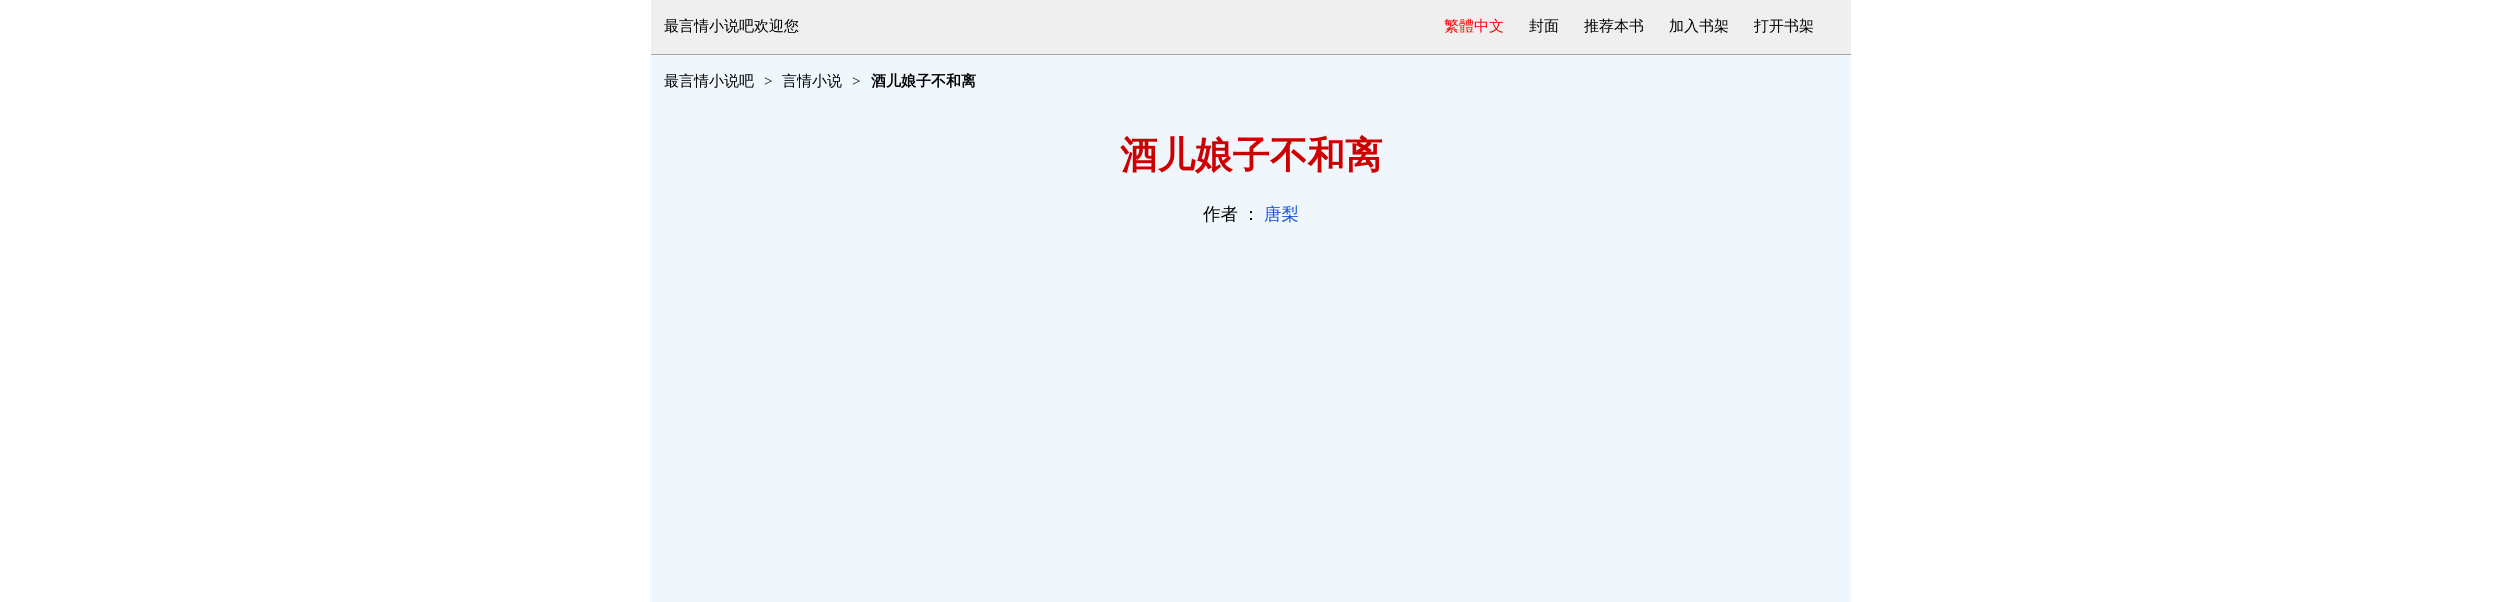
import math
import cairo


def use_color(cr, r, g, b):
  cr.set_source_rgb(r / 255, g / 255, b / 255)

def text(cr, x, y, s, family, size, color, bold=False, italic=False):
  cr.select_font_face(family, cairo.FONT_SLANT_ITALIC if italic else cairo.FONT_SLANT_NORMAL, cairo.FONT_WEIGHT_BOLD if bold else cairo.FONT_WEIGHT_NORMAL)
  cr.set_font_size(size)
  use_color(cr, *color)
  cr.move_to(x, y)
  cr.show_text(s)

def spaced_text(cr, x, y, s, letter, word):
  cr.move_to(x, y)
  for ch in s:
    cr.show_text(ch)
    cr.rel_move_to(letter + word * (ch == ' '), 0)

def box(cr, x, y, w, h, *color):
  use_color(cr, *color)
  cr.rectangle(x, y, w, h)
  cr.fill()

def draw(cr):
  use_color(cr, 255, 255, 255)
  cr.paint()
  box(cr, 651, 0, 1200, 54, 239, 239, 239)
  box(cr, 651, 54, 1200, 1, 166, 166, 166)
  box(cr, 651, 55, 1200, 547, 239, 246, 252)
  text(cr, 664, 31, "最言情小说吧欢迎您", "WenQuanYi Zen Hei Medium", 15, (0, 0, 0))
  text(cr, 1444, 31, "繁體中文", "WenQuanYi Zen Hei Medium", 15, (255, 0, 0))
  text(cr, 1529, 31, "封面", "WenQuanYi Zen Hei Medium", 15, (0, 0, 0))
  text(cr, 1584, 31, "推荐本书", "WenQuanYi Zen Hei Medium", 15, (0, 0, 0))
  text(cr, 1669, 31, "加入书架", "WenQuanYi Zen Hei Medium", 15, (0, 0, 0))
  text(cr, 1754, 31, "打开书架", "WenQuanYi Zen Hei Medium", 15, (0, 0, 0))
  text(cr, 664, 86, "最言情小说吧", "WenQuanYi Zen Hei Medium", 15, (0, 0, 0))
  text(cr, 764, 86, ">", "Liberation Serif", 15, (0, 0, 0))
  text(cr, 782, 86, "言情小说", "WenQuanYi Zen Hei Medium", 15, (0, 0, 0))
  text(cr, 852, 86, ">", "Liberation Serif", 15, (0, 0, 0))
  text(cr, 871, 86, "酒儿娘子不和离", "WenQuanYi Zen Hei", 15, (0, 0, 0), bold=True)
  text(cr, 1120, 168, "酒儿娘子不和离", "WenQuanYi Zen Hei", 37.5, (204, 0, 0), bold=True)
  cr.select_font_face("WenQuanYi Zen Hei Medium")
  cr.set_font_size(17.5)
  use_color(cr, 0, 0, 0)
  spaced_text(cr, 1203, 220, "作者 ：", 0, -1)
  text(cr, 1264, 220, "唐梨", "WenQuanYi Zen Hei Medium", 17.5, (27, 86, 216))


surface = cairo.ImageSurface(cairo.FORMAT_RGB24, 2502, 602)
cr = cairo.Context(surface)
options = cairo.FontOptions()
options.set_hint_metrics(cairo.HINT_METRICS_OFF)
options.set_hint_style(cairo.HINT_STYLE_NONE)
cr.set_font_options(options)
cr.set_miter_limit(4)
draw(cr)
surface.write_to_png("out.png")
